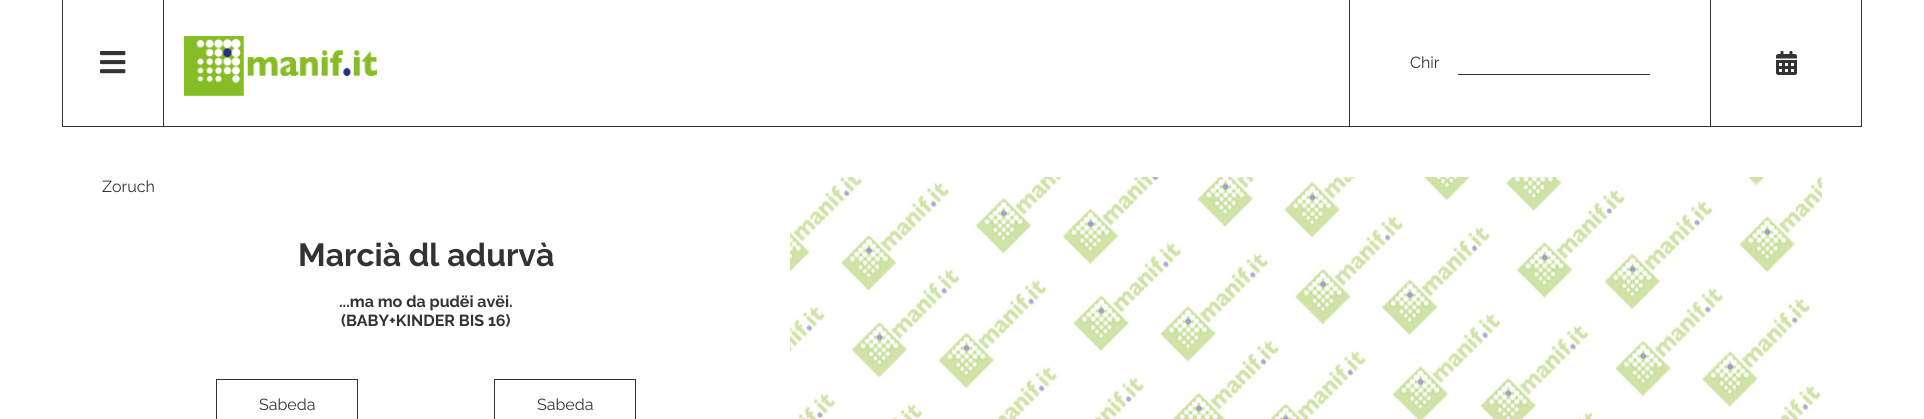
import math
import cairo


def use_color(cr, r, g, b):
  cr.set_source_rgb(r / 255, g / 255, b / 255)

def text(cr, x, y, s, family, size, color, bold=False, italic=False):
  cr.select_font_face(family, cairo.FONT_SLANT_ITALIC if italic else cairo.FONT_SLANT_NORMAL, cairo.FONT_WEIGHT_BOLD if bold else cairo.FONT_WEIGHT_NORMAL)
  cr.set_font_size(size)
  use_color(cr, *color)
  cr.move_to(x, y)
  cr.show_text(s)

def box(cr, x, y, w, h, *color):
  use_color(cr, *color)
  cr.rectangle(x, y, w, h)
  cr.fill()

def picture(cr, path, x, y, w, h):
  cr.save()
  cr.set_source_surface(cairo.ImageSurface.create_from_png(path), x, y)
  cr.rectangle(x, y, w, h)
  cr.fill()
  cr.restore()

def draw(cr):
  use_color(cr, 255, 255, 255)
  cr.paint()
  box(cr, 1861, 0, 1, 127, 51, 51, 51)
  box(cr, 62, 126, 1800, 1, 51, 51, 51)
  box(cr, 62, 0, 1, 127, 51, 51, 51)
  box(cr, 163, 0, 1, 126, 51, 51, 51)
  picture(cr, "img_01.png", 100, 51, 26, 23)
  box(cr, 1349, 0, 1, 126, 51, 51, 51)
  picture(cr, "img_02.png", 184, 36, 193, 60)
  box(cr, 1710, 0, 1, 126, 51, 51, 51)
  box(cr, 1458, 74, 192, 1, 51, 51, 51)
  picture(cr, "img_03.png", 1776, 51, 21, 24)
  cr.rectangle(216.5, 379.5, 141, 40)
  cr.set_line_width(1)
  cr.stroke()
  cr.rectangle(494.5, 379.5, 141, 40)
  cr.stroke()
  picture(cr, "img_04.png", 790, 177, 1032, 242)
  text(cr, 1410, 68, "Chir", "Raleway", 16, (51, 51, 51))
  text(cr, 102, 192, "Zoruch", "Raleway", 16, (51, 51, 51))
  text(cr, 298, 266, "Marcià dl adurvà", "Raleway", 32, (51, 51, 51), bold=True)
  text(cr, 339, 307, "...ma mo da pudëi avëi.", "Raleway", 16, (51, 51, 51), bold=True)
  text(cr, 341, 326, "(BABY+KINDER BIS 16)", "Raleway", 16, (51, 51, 51), bold=True)
  text(cr, 259, 410, "Sabeda", "Raleway", 16, (51, 51, 51))
  text(cr, 537, 410, "Sabeda", "Raleway", 16, (51, 51, 51))


surface = cairo.ImageSurface(cairo.FORMAT_RGB24, 1924, 419)
cr = cairo.Context(surface)
options = cairo.FontOptions()
options.set_hint_metrics(cairo.HINT_METRICS_OFF)
options.set_hint_style(cairo.HINT_STYLE_NONE)
cr.set_font_options(options)
cr.set_miter_limit(4)
draw(cr)
surface.write_to_png("out.png")
